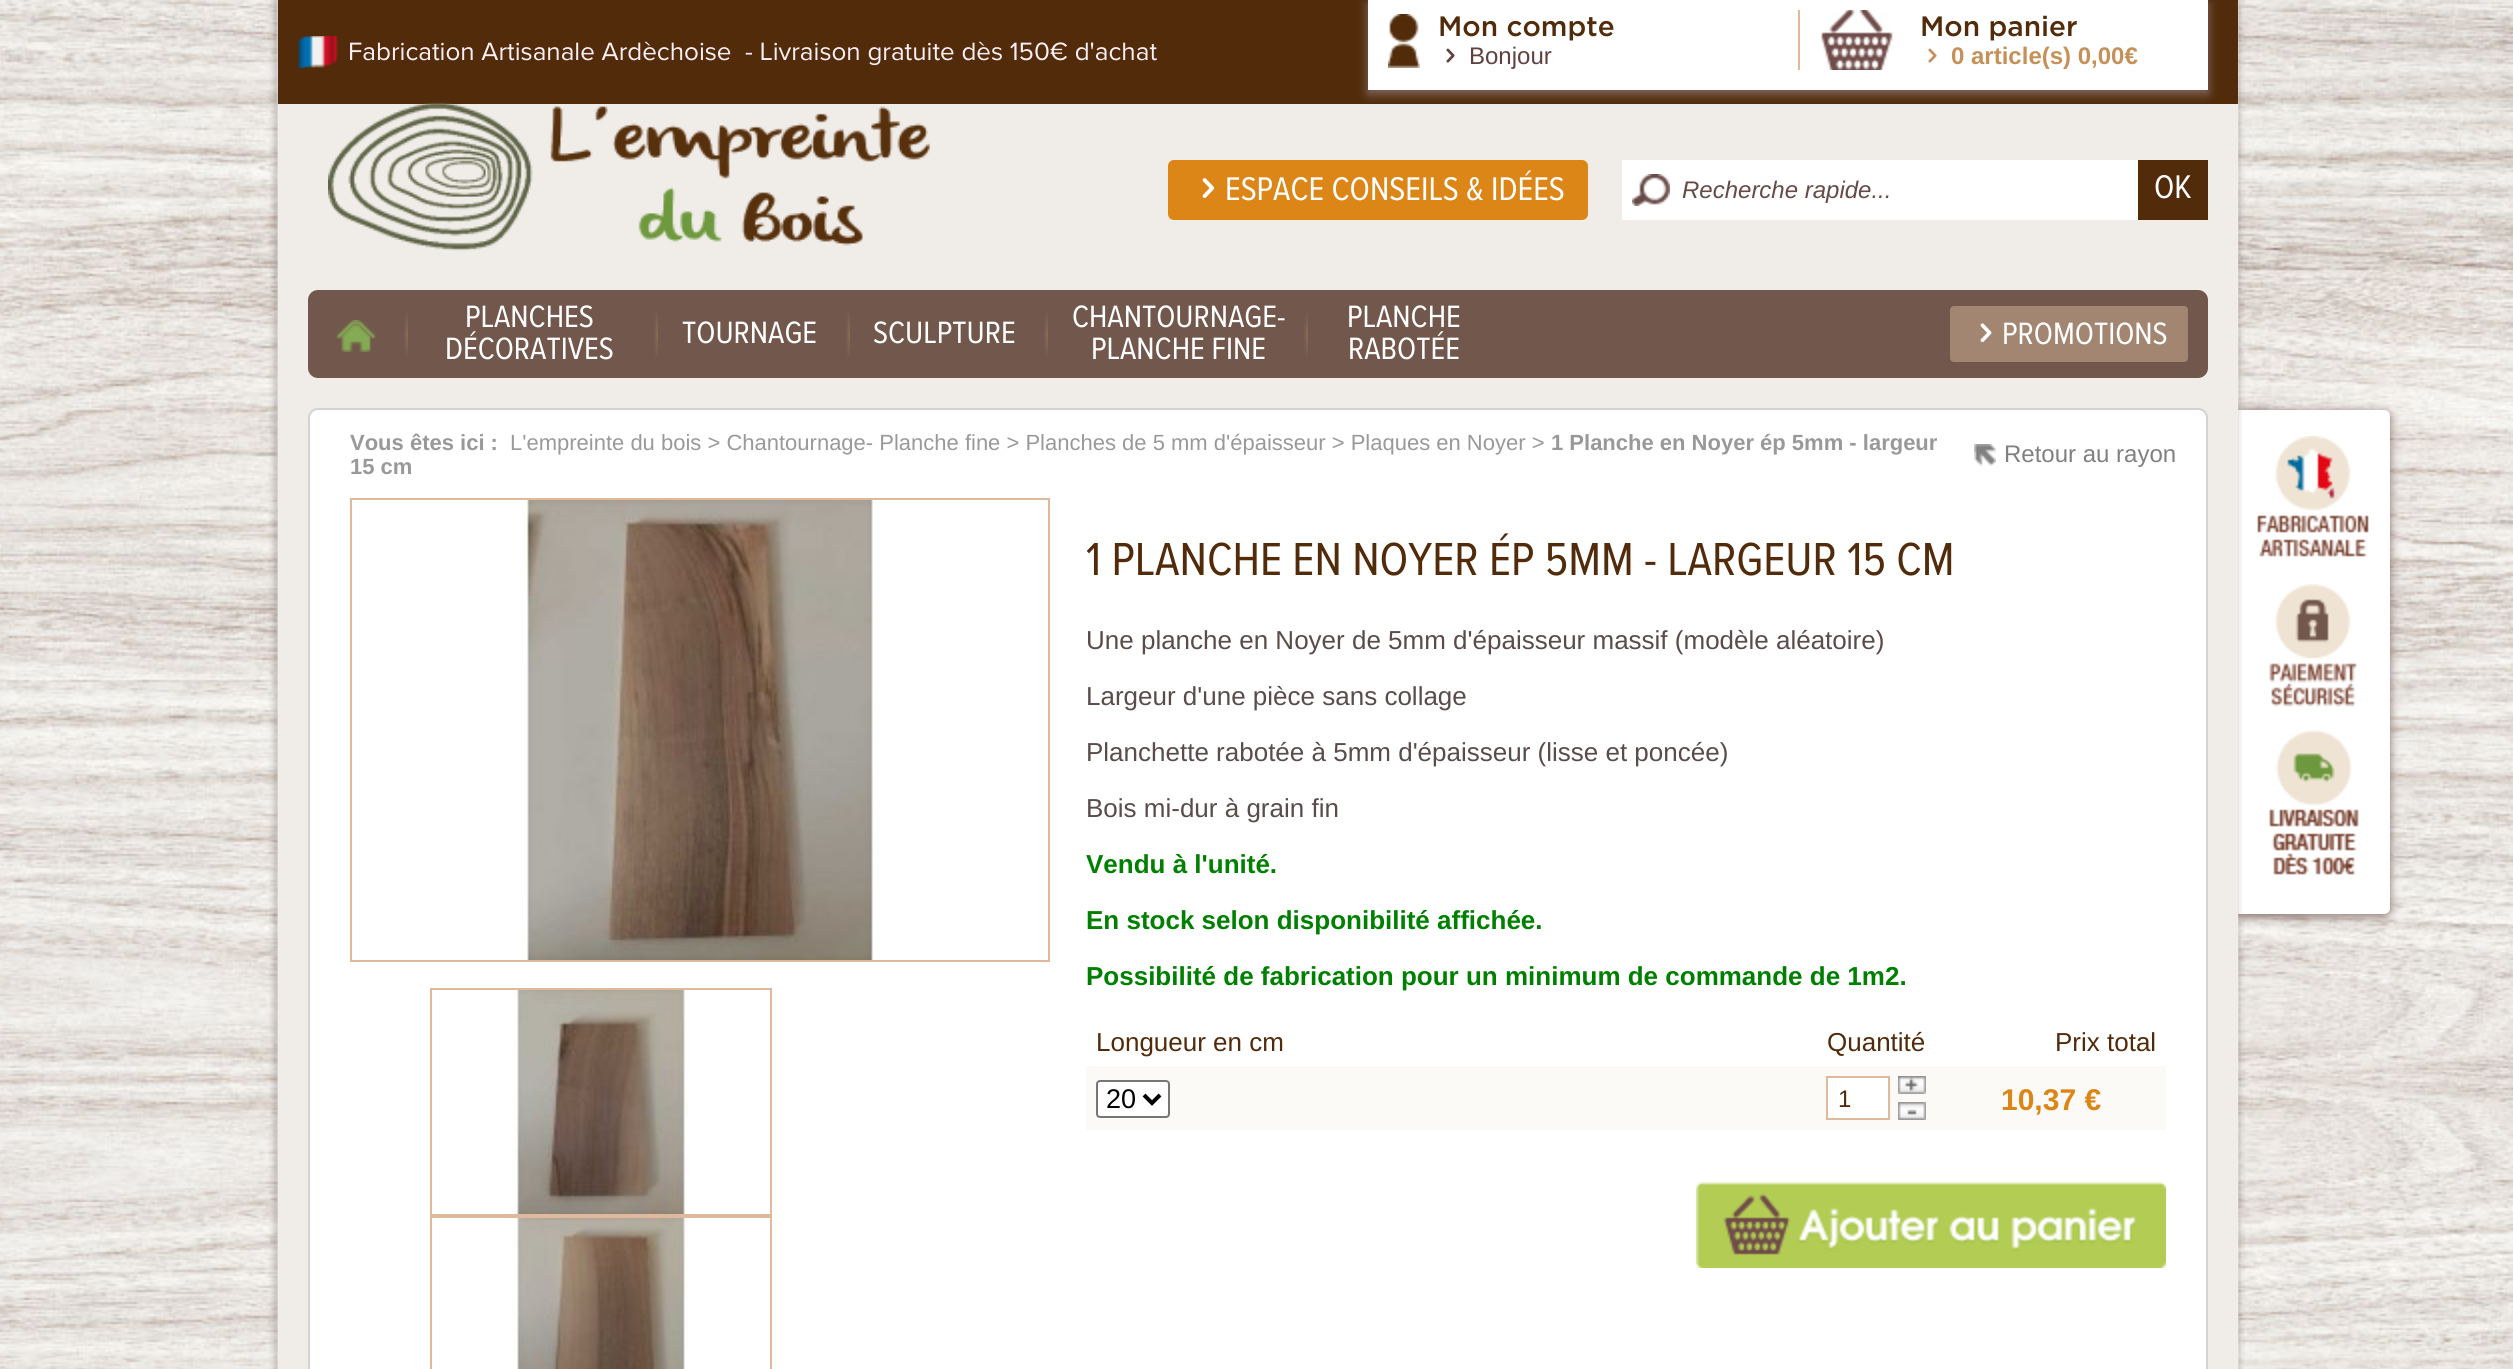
import math
import cairo


def use_color(cr, r, g, b):
  cr.set_source_rgb(r / 255, g / 255, b / 255)

def text(cr, x, y, s, family, size, color, bold=False, italic=False):
  cr.select_font_face(family, cairo.FONT_SLANT_ITALIC if italic else cairo.FONT_SLANT_NORMAL, cairo.FONT_WEIGHT_BOLD if bold else cairo.FONT_WEIGHT_NORMAL)
  cr.set_font_size(size)
  use_color(cr, *color)
  cr.move_to(x, y)
  cr.show_text(s)

def box(cr, x, y, w, h, *color):
  use_color(cr, *color)
  cr.rectangle(x, y, w, h)
  cr.fill()

def round_rect(cr, x, y, w, h, r):
  cr.new_sub_path()
  for i, (u, v) in enumerate([(x + w - r, y + h - r), (x + r, y + h - r), (x + r, y + r), (x + w - r, y + r)]):
    cr.arc(u, v, r, i * math.pi / 2, (i + 1) * math.pi / 2)
  cr.close_path()

def shadow(cr, x, y, w, h, r, blur, alpha):
  cr.push_group_with_content(cairo.CONTENT_ALPHA)
  cr.set_operator(cairo.OPERATOR_SOURCE)
  for i in range(15, -16, -2):
    e = blur * i / 6
    if min(w, h) + 2 * e > 0:
      cr.set_source_rgba(0, 0, 0, alpha * math.erfc((i - 1) / 8.5) / 2)
      round_rect(cr, x - e, y - e, w + 2 * e, h + 2 * e, max(0, min(r + e + blur * .6, min(w, h) / 2 + e)))
      cr.fill()
  cr.mask(cr.pop_group())

def picture(cr, path, x, y, w, h):
  cr.save()
  cr.set_source_surface(cairo.ImageSurface.create_from_png(path), x, y)
  cr.rectangle(x, y, w, h)
  cr.fill()
  cr.restore()

def draw(cr):
  use_color(cr, 255, 255, 255)
  cr.paint()
  picture(cr, "img_01.png", 0, 0, 2513, 1369)
  picture(cr, "img_02.png", 269, 0, 1976, 1369)
  use_color(cr, 132, 106, 102)
  shadow(cr, 2236, 412, 154, 504, 6, 5, 1)
  use_color(cr, 255, 255, 255)
  cr.new_path()
  cr.move_to(2236, 410)
  cr.line_to(2384, 410)
  cr.curve_to(2387.5, 410, 2390, 412.5, 2390, 416)
  cr.line_to(2390, 908)
  cr.curve_to(2390, 911.5, 2387.5, 914, 2384, 914)
  cr.line_to(2236, 914)
  cr.close_path()
  cr.fill()
  box(cr, 278, 104, 1960, 1265, 240, 236, 232)
  box(cr, 278, 0, 1960, 104, 81, 43, 10)
  picture(cr, "img_03.png", 298, 36, 40, 32)
  use_color(cr, 132, 106, 102)
  shadow(cr, 1368, 4, 840, 90, 0, 5, 1)
  box(cr, 1368, 0, 840, 90, 255, 255, 255)
  picture(cr, "img_04.png", 1388, 14, 32, 54)
  box(cr, 1798, 10, 2, 60, 224, 185, 157)
  picture(cr, "img_05.png", 1446, 48, 9, 15)
  picture(cr, "img_06.png", 1821, 10, 72, 60)
  picture(cr, "img_07.png", 1928, 48, 9, 15)
  use_color(cr, 219, 134, 22)
  round_rect(cr, 1168, 160, 420, 60, 6)
  cr.fill()
  picture(cr, "img_08.png", 1202, 178, 13, 20)
  box(cr, 1622, 160, 516, 60, 255, 255, 255)
  picture(cr, "img_09.png", 1632, 174, 38, 32)
  box(cr, 2138, 160, 70, 60, 81, 43, 10)
  picture(cr, "img_10.png", 328, 102, 602, 149)
  use_color(cr, 114, 87, 76)
  round_rect(cr, 308, 290, 1900, 88, 10)
  cr.fill()
  picture(cr, "img_11.png", 336, 320, 40, 32)
  picture(cr, "img_12.png", 404, 312, 4, 46)
  picture(cr, "img_12.png", 654, 312, 4, 46)
  picture(cr, "img_12.png", 846, 312, 4, 46)
  picture(cr, "img_12.png", 1044, 312, 4, 46)
  picture(cr, "img_12.png", 1304, 312, 4, 46)
  use_color(cr, 163, 134, 114)
  round_rect(cr, 1950, 306, 238, 56, 4)
  cr.fill()
  picture(cr, "img_13.png", 1980, 323, 12, 20)
  use_color(cr, 255, 255, 255)
  round_rect(cr, 309, 409, 1898, 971, 9)
  cr.fill_preserve()
  use_color(cr, 209, 211, 212)
  cr.stroke()
  picture(cr, "img_14.png", 1974, 444, 22, 22)
  cr.rectangle(351, 499, 698, 462)
  use_color(cr, 224, 185, 157)
  cr.stroke()
  picture(cr, "img_15.png", 523, 500, 352, 460)
  cr.rectangle(431, 989, 340, 226)
  cr.stroke()
  picture(cr, "img_16.png", 514, 990, 174, 224)
  cr.rectangle(431, 1217, 340, 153)
  cr.stroke()
  picture(cr, "img_17.png", 514, 1218, 174, 151)
  box(cr, 1086, 1066, 1080, 64, 251, 250, 246)
  use_color(cr, 255, 255, 255)
  round_rect(cr, 1097, 1081, 72, 36, 3)
  cr.fill_preserve()
  use_color(cr, 118, 118, 118)
  cr.stroke()
  cr.new_path()
  cr.move_to(1144, 1095)
  cr.line_to(1152, 1103)
  cr.line_to(1160, 1095)
  use_color(cr, 0, 0, 0)
  cr.set_line_width(4)
  cr.stroke()
  picture(cr, "img_18.png", 1898, 1076, 28, 18)
  use_color(cr, 255, 255, 255)
  cr.rectangle(1827, 1077, 62, 42)
  cr.fill_preserve()
  use_color(cr, 224, 185, 157)
  cr.set_line_width(2)
  cr.stroke()
  picture(cr, "img_19.png", 1898, 1102, 28, 18)
  picture(cr, "img_20.png", 1696, 1182, 470, 86)
  picture(cr, "img_21.png", 2238, 410, 5, 504)
  picture(cr, "img_22.png", 2257, 436, 112, 121)
  picture(cr, "img_23.png", 2269, 584, 88, 123)
  picture(cr, "img_24.png", 2269, 730, 90, 145)
  text(cr, 348, 60, "Fabrication Artisanale Ardèchoise  - Livraison gratuite dès 150€ d'achat", "Proxima Nova", 26, (255, 240, 245))
  text(cr, 1438, 36, "Mon compte", "Gotham Medium", 28, (81, 43, 10))
  text(cr, 1469, 64, "Bonjour", "Liberation Sans", 24, (96, 65, 64))
  text(cr, 1920, 36, "Mon panier", "Gotham Medium", 28, (81, 43, 10))
  text(cr, 1951, 64, "0 article(s) 0,00€", "Liberation Sans", 24, (198, 144, 89), bold=True)
  text(cr, 1225, 200, "ESPACE CONSEILS & IDÉES", "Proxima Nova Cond", 34, (255, 255, 255))
  text(cr, 1682, 198, "Recherche rapide...", "Liberation Sans", 24, (102, 74, 70), italic=True)
  text(cr, 2154, 198, "OK", "Proxima Nova Cond", 34, (255, 255, 255))
  text(cr, 465, 327, "PLANCHES", "Proxima Nova Cond", 32, (255, 255, 255))
  text(cr, 445, 359, "DÉCORATIVES", "Proxima Nova Cond", 32, (255, 255, 255))
  text(cr, 682, 343, "TOURNAGE", "Proxima Nova Cond", 32, (255, 255, 255))
  text(cr, 873, 343, "SCULPTURE", "Proxima Nova Cond", 32, (255, 255, 255))
  text(cr, 1072, 327, "CHANTOURNAGE-", "Proxima Nova Cond", 32, (255, 255, 255))
  text(cr, 1091, 359, "PLANCHE FINE", "Proxima Nova Cond", 32, (255, 255, 255))
  text(cr, 1347, 327, "PLANCHE", "Proxima Nova Cond", 32, (255, 255, 255))
  text(cr, 1348, 359, "RABOTÉE", "Proxima Nova Cond", 32, (255, 255, 255))
  text(cr, 2002, 344, "PROMOTIONS", "Proxima Nova Cond", 32, (255, 255, 255))
  text(cr, 350, 450, "Vous êtes ici :", "Liberation Sans", 22, (153, 153, 153), bold=True)
  text(cr, 510, 450, "L'empreinte du bois > Chantournage- Planche fine > Planches de 5 mm d'épaisseur > Plaques en Noyer >", "Liberation Sans", 22, (153, 153, 153))
  text(cr, 1551, 450, "1 Planche en Noyer ép 5mm - largeur", "Liberation Sans", 22, (153, 153, 153), bold=True)
  text(cr, 350, 474, "15 cm", "Liberation Sans", 22, (153, 153, 153), bold=True)
  text(cr, 2004, 462, "Retour au rayon", "Liberation Sans", 24, (128, 128, 128))
  text(cr, 1086, 575, "1 PLANCHE EN NOYER ÉP 5MM - LARGEUR 15 CM", "Proxima Nova Cond", 48, (81, 43, 10))
  text(cr, 1086, 649, "Une planche en Noyer de 5mm d'épaisseur massif (modèle aléatoire)", "Liberation Sans", 26, (89, 76, 75))
  text(cr, 1086, 705, "Largeur d'une pièce sans collage", "Liberation Sans", 26, (89, 76, 75))
  text(cr, 1086, 761, "Planchette rabotée à 5mm d'épaisseur (lisse et poncée)", "Liberation Sans", 26, (89, 76, 75))
  text(cr, 1086, 817, "Bois mi-dur à grain fin", "Liberation Sans", 26, (89, 76, 75))
  text(cr, 1086, 873, "Vendu à l'unité.", "Liberation Sans", 26, (0, 128, 0), bold=True)
  text(cr, 1086, 929, "En stock selon disponibilité affichée.", "Liberation Sans", 26, (0, 128, 0), bold=True)
  text(cr, 1086, 985, "Possibilité de fabrication pour un minimum de commande de 1m2.", "Liberation Sans", 26, (0, 128, 0), bold=True)
  text(cr, 1096, 1051, "Longueur en cm", "Liberation Sans", 26, (81, 43, 10))
  text(cr, 1827, 1051, "Quantité", "Liberation Sans", 26, (81, 43, 10))
  text(cr, 2055, 1051, "Prix total", "Liberation Sans", 26, (81, 43, 10))
  text(cr, 1106, 1108, "20", "Liberation Sans", 27, (0, 0, 0))
  text(cr, 1838, 1107, "1", "Liberation Sans", 24, (81, 43, 10))
  text(cr, 2001, 1110, "10,37 €", "Liberation Sans", 30, (219, 134, 22), bold=True)


surface = cairo.ImageSurface(cairo.FORMAT_RGB24, 2513, 1369)
cr = cairo.Context(surface)
options = cairo.FontOptions()
options.set_hint_metrics(cairo.HINT_METRICS_OFF)
options.set_hint_style(cairo.HINT_STYLE_NONE)
cr.set_font_options(options)
cr.set_miter_limit(4)
draw(cr)
surface.write_to_png("out.png")
